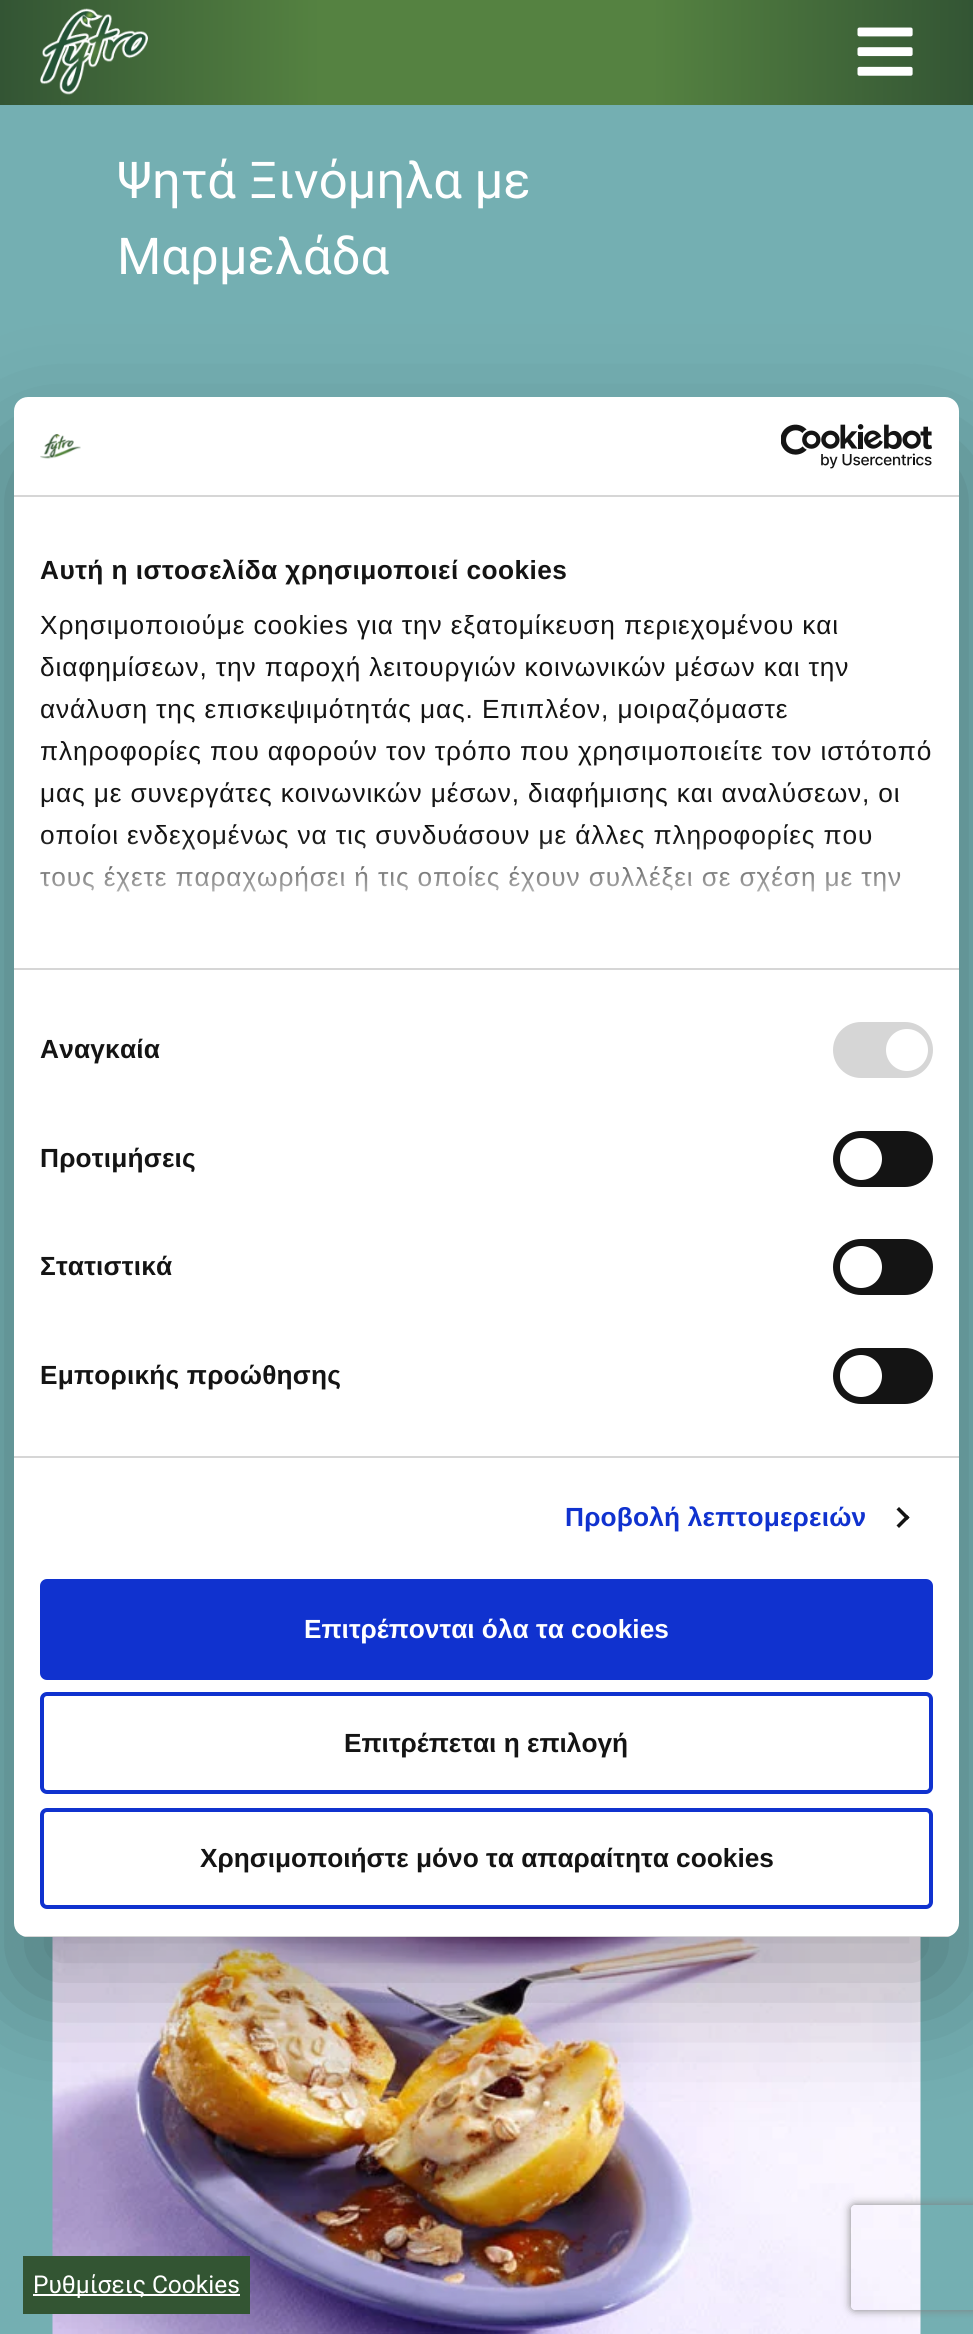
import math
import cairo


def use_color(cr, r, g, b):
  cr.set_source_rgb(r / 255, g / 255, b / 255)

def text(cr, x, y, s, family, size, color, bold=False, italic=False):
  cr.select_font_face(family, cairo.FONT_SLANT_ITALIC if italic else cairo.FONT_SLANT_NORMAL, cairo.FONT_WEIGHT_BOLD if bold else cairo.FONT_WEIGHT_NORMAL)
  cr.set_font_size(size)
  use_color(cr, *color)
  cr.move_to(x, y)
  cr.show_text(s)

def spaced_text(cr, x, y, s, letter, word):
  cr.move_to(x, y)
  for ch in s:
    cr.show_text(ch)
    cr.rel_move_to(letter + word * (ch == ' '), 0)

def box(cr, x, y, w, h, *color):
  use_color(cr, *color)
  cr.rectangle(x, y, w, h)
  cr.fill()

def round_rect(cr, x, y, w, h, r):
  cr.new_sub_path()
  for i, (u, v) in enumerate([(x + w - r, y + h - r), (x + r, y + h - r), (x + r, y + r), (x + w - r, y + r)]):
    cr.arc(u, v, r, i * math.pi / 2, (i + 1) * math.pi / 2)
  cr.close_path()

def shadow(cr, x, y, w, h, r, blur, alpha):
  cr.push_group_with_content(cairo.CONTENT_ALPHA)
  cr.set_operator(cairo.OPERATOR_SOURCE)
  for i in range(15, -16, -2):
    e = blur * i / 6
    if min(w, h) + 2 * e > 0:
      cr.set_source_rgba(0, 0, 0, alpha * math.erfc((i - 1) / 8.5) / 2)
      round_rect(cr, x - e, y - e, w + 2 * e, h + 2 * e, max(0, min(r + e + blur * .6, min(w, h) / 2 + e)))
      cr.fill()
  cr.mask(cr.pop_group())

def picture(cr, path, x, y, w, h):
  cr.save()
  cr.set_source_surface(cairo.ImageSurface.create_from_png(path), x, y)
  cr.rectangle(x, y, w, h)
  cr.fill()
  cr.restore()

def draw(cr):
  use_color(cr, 116, 175, 178)
  cr.paint()
  gradient = cairo.LinearGradient(973, 53, 0, 52)
  gradient.add_color_stop_rgba(0, 0.2, 0.333, 0.204, 1)
  gradient.add_color_stop_rgba(0.33, 0.333, 0.51, 0.255, 1)
  gradient.add_color_stop_rgba(0.67, 0.333, 0.51, 0.255, 1)
  gradient.add_color_stop_rgba(1, 0.2, 0.333, 0.204, 1)
  cr.set_source(gradient)
  cr.rectangle(0, 0, 973, 105)
  cr.fill()
  picture(cr, "img_01.png", 40, 8, 108, 87)
  picture(cr, "img_02.png", 857, 27, 56, 49)
  picture(cr, "img_03.png", 52, 1937, 869, 397)
  use_color(cr, 0, 0, 0)
  shadow(cr, 14, 453, 945, 1540, 14, 59.5, 0.3)
  use_color(cr, 255, 255, 255)
  round_rect(cr, 14, 397, 945, 1540, 14)
  cr.fill()
  box(cr, 14, 495, 945, 2, 214, 214, 214)
  picture(cr, "img_04.png", 40, 433, 41, 26)
  picture(cr, "img_05.png", 781, 424, 151, 45)
  box(cr, 14, 968, 945, 2, 214, 214, 214)
  box(cr, 14, 1456, 945, 2, 214, 214, 214)
  round_rect(cr, 833, 1022, 100, 56, 28)
  cr.fill()
  use_color(cr, 255, 255, 255)
  cr.arc(907, 1050, 21, 0, 2 * math.pi)
  cr.fill()
  use_color(cr, 20, 20, 20)
  round_rect(cr, 833, 1131, 100, 56, 28)
  cr.fill()
  use_color(cr, 255, 255, 255)
  cr.arc(861, 1159, 21, 0, 2 * math.pi)
  cr.fill()
  use_color(cr, 20, 20, 20)
  round_rect(cr, 833, 1239, 100, 56, 28)
  cr.fill()
  use_color(cr, 255, 255, 255)
  cr.arc(861, 1267, 21, 0, 2 * math.pi)
  cr.fill()
  use_color(cr, 20, 20, 20)
  round_rect(cr, 833, 1348, 100, 56, 28)
  cr.fill()
  use_color(cr, 255, 255, 255)
  cr.arc(861, 1376, 21, 0, 2 * math.pi)
  cr.fill()
  use_color(cr, 20, 20, 20)
  cr.new_path()
  cr.move_to(899, 1507)
  cr.line_to(909.5, 1517.5)
  cr.line_to(907, 1520)
  cr.line_to(896.5, 1509.5)
  cr.close_path()
  cr.fill()
  cr.new_path()
  cr.move_to(907, 1515)
  cr.line_to(909.5, 1517.5)
  cr.line_to(899, 1528)
  cr.line_to(896.5, 1525.5)
  cr.close_path()
  cr.fill()
  cr.save()
  round_rect(cr, 14, 397, 945, 1540, 14)
  cr.clip()
  box(cr, 23, 1936, 927, 1, 214, 214, 214)
  cr.restore()
  use_color(cr, 16, 50, 207)
  round_rect(cr, 42, 1581, 889, 97, 5)
  cr.fill_preserve()
  cr.set_line_width(4)
  cr.stroke()
  round_rect(cr, 42, 1694, 889, 98, 5)
  cr.stroke()
  round_rect(cr, 42, 1810, 889, 97, 5)
  cr.stroke()
  box(cr, 23, 2256, 227, 58, 51, 85, 51)
  box(cr, 33, 2294, 207, 2, 255, 255, 255)
  cr.save()
  cr.set_fill_rule(cairo.FILL_RULE_EVEN_ODD)
  cr.new_path()
  cr.move_to(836, 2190)
  cr.line_to(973, 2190)
  cr.line_to(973, 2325)
  cr.line_to(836, 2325)
  cr.close_path()
  cr.move_to(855, 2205)
  cr.line_to(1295, 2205)
  cr.curve_to(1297, 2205, 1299, 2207, 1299, 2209)
  cr.line_to(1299, 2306)
  cr.curve_to(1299, 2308, 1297, 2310, 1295, 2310)
  cr.line_to(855, 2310)
  cr.curve_to(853, 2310, 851, 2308, 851, 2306)
  cr.line_to(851, 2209)
  cr.curve_to(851, 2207, 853, 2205, 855, 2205)
  cr.close_path()
  cr.clip()
  use_color(cr, 128, 128, 128)
  shadow(cr, 851, 2205, 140, 105, 4, 4.5, 1)
  cr.restore()
  text(cr, 117, 198, "Ψητά Ξινόμηλα με", "Roboto", 50.75, (255, 255, 255))
  text(cr, 117, 274, "Μαρμελάδα", "Roboto", 50.75, (255, 255, 255))
  cr.select_font_face("Liberation Sans", cairo.FONT_SLANT_NORMAL, cairo.FONT_WEIGHT_BOLD)
  cr.set_font_size(26.25)
  use_color(cr, 20, 20, 20)
  spaced_text(cr, 40, 579, "Αυτή η ιστοσελίδα χρησιμοποιεί cookies", 0.45, 0)
  cr.select_font_face("Liberation Sans")
  spaced_text(cr, 40, 634, "Χρησιμοποιούμε cookies για την εξατομίκευση περιεχομένου και", 0.88, 0)
  spaced_text(cr, 40, 676, "διαφημίσεων, την παροχή λειτουργιών κοινωνικών μέσων και την", 0.88, 0)
  spaced_text(cr, 40, 718, "ανάλυση της επισκεψιμότητάς μας. Επιπλέον, μοιραζόμαστε", 0.88, 0)
  spaced_text(cr, 40, 760, "πληροφορίες που αφορούν τον τρόπο που χρησιμοποιείτε τον ιστότοπό", 0.88, 0)
  spaced_text(cr, 40, 802, "μας με συνεργάτες κοινωνικών μέσων, διαφήμισης και αναλύσεων, οι", 0.88, 0)
  spaced_text(cr, 40, 844, "οποίοι ενδεχομένως να τις συνδυάσουν με άλλες πληροφορίες που", 0.88, 0)
  spaced_text(cr, 40, 886, "τους έχετε παραχωρήσει ή τις οποίες έχουν συλλέξει σε σχέση με την", 0.88, 0)
  gradient = cairo.LinearGradient(475, 968, 475, 837)
  gradient.add_color_stop_rgba(0, 1, 1, 1, 1)
  gradient.add_color_stop_rgba(0.5, 1, 1, 1, 0.8)
  gradient.add_color_stop_rgba(1, 1, 1, 1, 0)
  cr.set_source(gradient)
  cr.rectangle(40, 839, 861, 53)
  cr.fill()
  cr.select_font_face("Liberation Sans", cairo.FONT_SLANT_NORMAL, cairo.FONT_WEIGHT_BOLD)
  use_color(cr, 20, 20, 20)
  spaced_text(cr, 40, 1058, "Αναγκαία", 0.2, 0)
  spaced_text(cr, 40, 1167, "Προτιμήσεις", 0.2, 0)
  spaced_text(cr, 40, 1275, "Στατιστικά", 0.2, 0)
  spaced_text(cr, 40, 1384, "Εμπορικής προώθησης", 0.2, 0)
  use_color(cr, 16, 50, 207)
  spaced_text(cr, 565, 1526, "Προβολή λεπτομερειών", 0.2, 0)
  text(cr, 304, 1638, "Επιτρέπονται όλα τα cookies", "Liberation Sans", 26.25, (255, 255, 255), bold=True)
  text(cr, 344, 1752, "Επιτρέπεται η επιλογή", "Liberation Sans", 26.25, (20, 20, 20), bold=True)
  text(cr, 200, 1867, "Χρησιμοποιήστε μόνο τα απαραίτητα cookies", "Liberation Sans", 26.25, (20, 20, 20), bold=True)
  text(cr, 33, 2293, "Ρυθμίσεις Cookies", "Roboto", 24.5, (255, 255, 255))


surface = cairo.ImageSurface(cairo.FORMAT_RGB24, 973, 2334)
cr = cairo.Context(surface)
options = cairo.FontOptions()
options.set_hint_metrics(cairo.HINT_METRICS_OFF)
options.set_hint_style(cairo.HINT_STYLE_NONE)
cr.set_font_options(options)
cr.set_miter_limit(4)
draw(cr)
surface.write_to_png("out.png")
